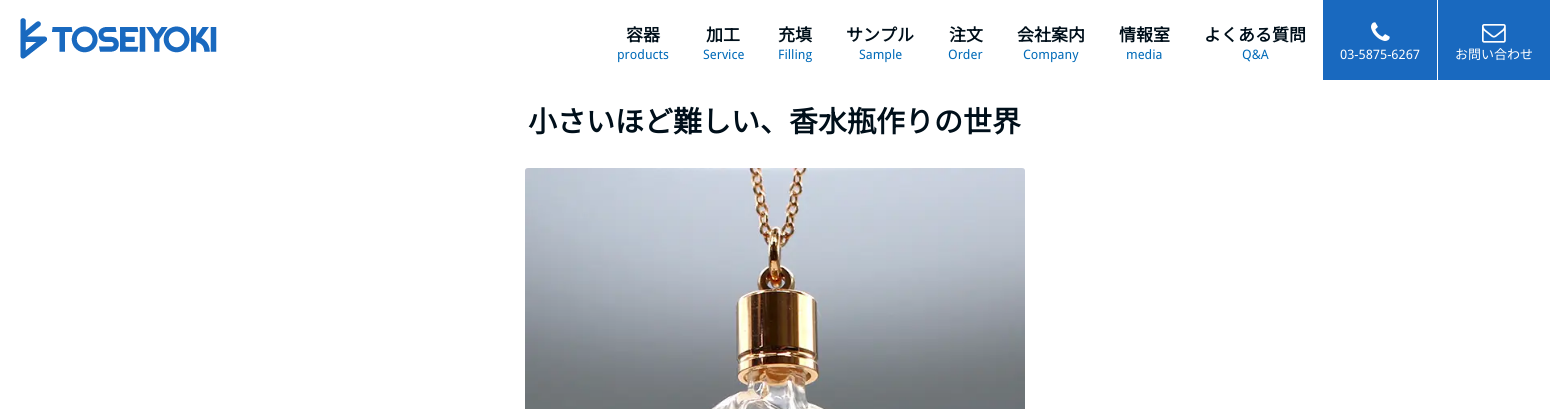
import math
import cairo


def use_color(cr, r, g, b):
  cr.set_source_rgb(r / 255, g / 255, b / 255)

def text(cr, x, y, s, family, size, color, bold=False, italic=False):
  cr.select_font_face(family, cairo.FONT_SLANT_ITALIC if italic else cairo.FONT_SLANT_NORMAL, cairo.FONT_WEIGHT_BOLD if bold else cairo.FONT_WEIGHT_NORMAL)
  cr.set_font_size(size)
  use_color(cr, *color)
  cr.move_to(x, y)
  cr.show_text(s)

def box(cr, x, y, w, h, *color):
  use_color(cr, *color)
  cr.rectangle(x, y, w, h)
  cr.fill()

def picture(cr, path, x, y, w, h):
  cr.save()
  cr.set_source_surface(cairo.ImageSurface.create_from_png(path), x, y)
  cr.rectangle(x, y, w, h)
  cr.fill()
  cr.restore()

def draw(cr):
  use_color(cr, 255, 255, 255)
  cr.paint()
  picture(cr, "img_01.png", 20, 18, 197, 41)
  box(cr, 1323, 0, 114, 80, 25, 105, 191)
  picture(cr, "img_02.png", 1371, 22, 19, 19)
  box(cr, 1438, 0, 112, 80, 25, 105, 191)
  picture(cr, "img_03.png", 1482, 24, 24, 19)
  picture(cr, "img_04.png", 525, 168, 500, 241)
  text(cr, 626, 41, "容器", "Noto Sans JP", 17, (0, 15, 26), bold=True)
  text(cr, 617, 59, "products", "Droid Sans", 13, (0, 106, 184))
  text(cr, 706, 41, "加工", "Noto Sans JP", 17, (0, 15, 26), bold=True)
  text(cr, 703, 59, "Service", "Droid Sans", 13, (0, 106, 184))
  text(cr, 778, 41, "充填", "Noto Sans JP", 17, (0, 15, 26), bold=True)
  text(cr, 778, 59, "Filling", "Droid Sans", 13, (0, 106, 184))
  text(cr, 846, 41, "サンプル", "Noto Sans JP", 17, (0, 15, 26), bold=True)
  text(cr, 859, 59, "Sample", "Droid Sans", 13, (0, 106, 184))
  text(cr, 949, 41, "注文", "Noto Sans JP", 17, (0, 15, 26), bold=True)
  text(cr, 948, 59, "Order", "Droid Sans", 13, (0, 106, 184))
  text(cr, 1017, 41, "会社案内", "Noto Sans JP", 17, (0, 15, 26), bold=True)
  text(cr, 1023, 59, "Company", "Droid Sans", 13, (0, 106, 184))
  text(cr, 1119, 41, "情報室", "Noto Sans JP", 17, (0, 15, 26), bold=True)
  text(cr, 1126, 59, "media", "Droid Sans", 13, (0, 106, 184))
  text(cr, 1204, 41, "よくある質問", "Noto Sans JP", 17, (0, 15, 26), bold=True)
  text(cr, 1242, 59, "Q&A", "Droid Sans", 13, (0, 106, 184))
  text(cr, 1340, 59, "03-5875-6267", "Droid Sans", 13, (255, 255, 255))
  text(cr, 1455, 59, "お問い合わせ", "Noto Sans JP Thin", 13, (255, 255, 255))
  text(cr, 528, 132, "小さいほど難しい、香水瓶作りの世界", "Noto Sans JP", 29, (0, 15, 26), bold=True)


surface = cairo.ImageSurface(cairo.FORMAT_RGB24, 1550, 409)
cr = cairo.Context(surface)
options = cairo.FontOptions()
options.set_hint_metrics(cairo.HINT_METRICS_OFF)
options.set_hint_style(cairo.HINT_STYLE_NONE)
cr.set_font_options(options)
cr.set_miter_limit(4)
draw(cr)
surface.write_to_png("out.png")
